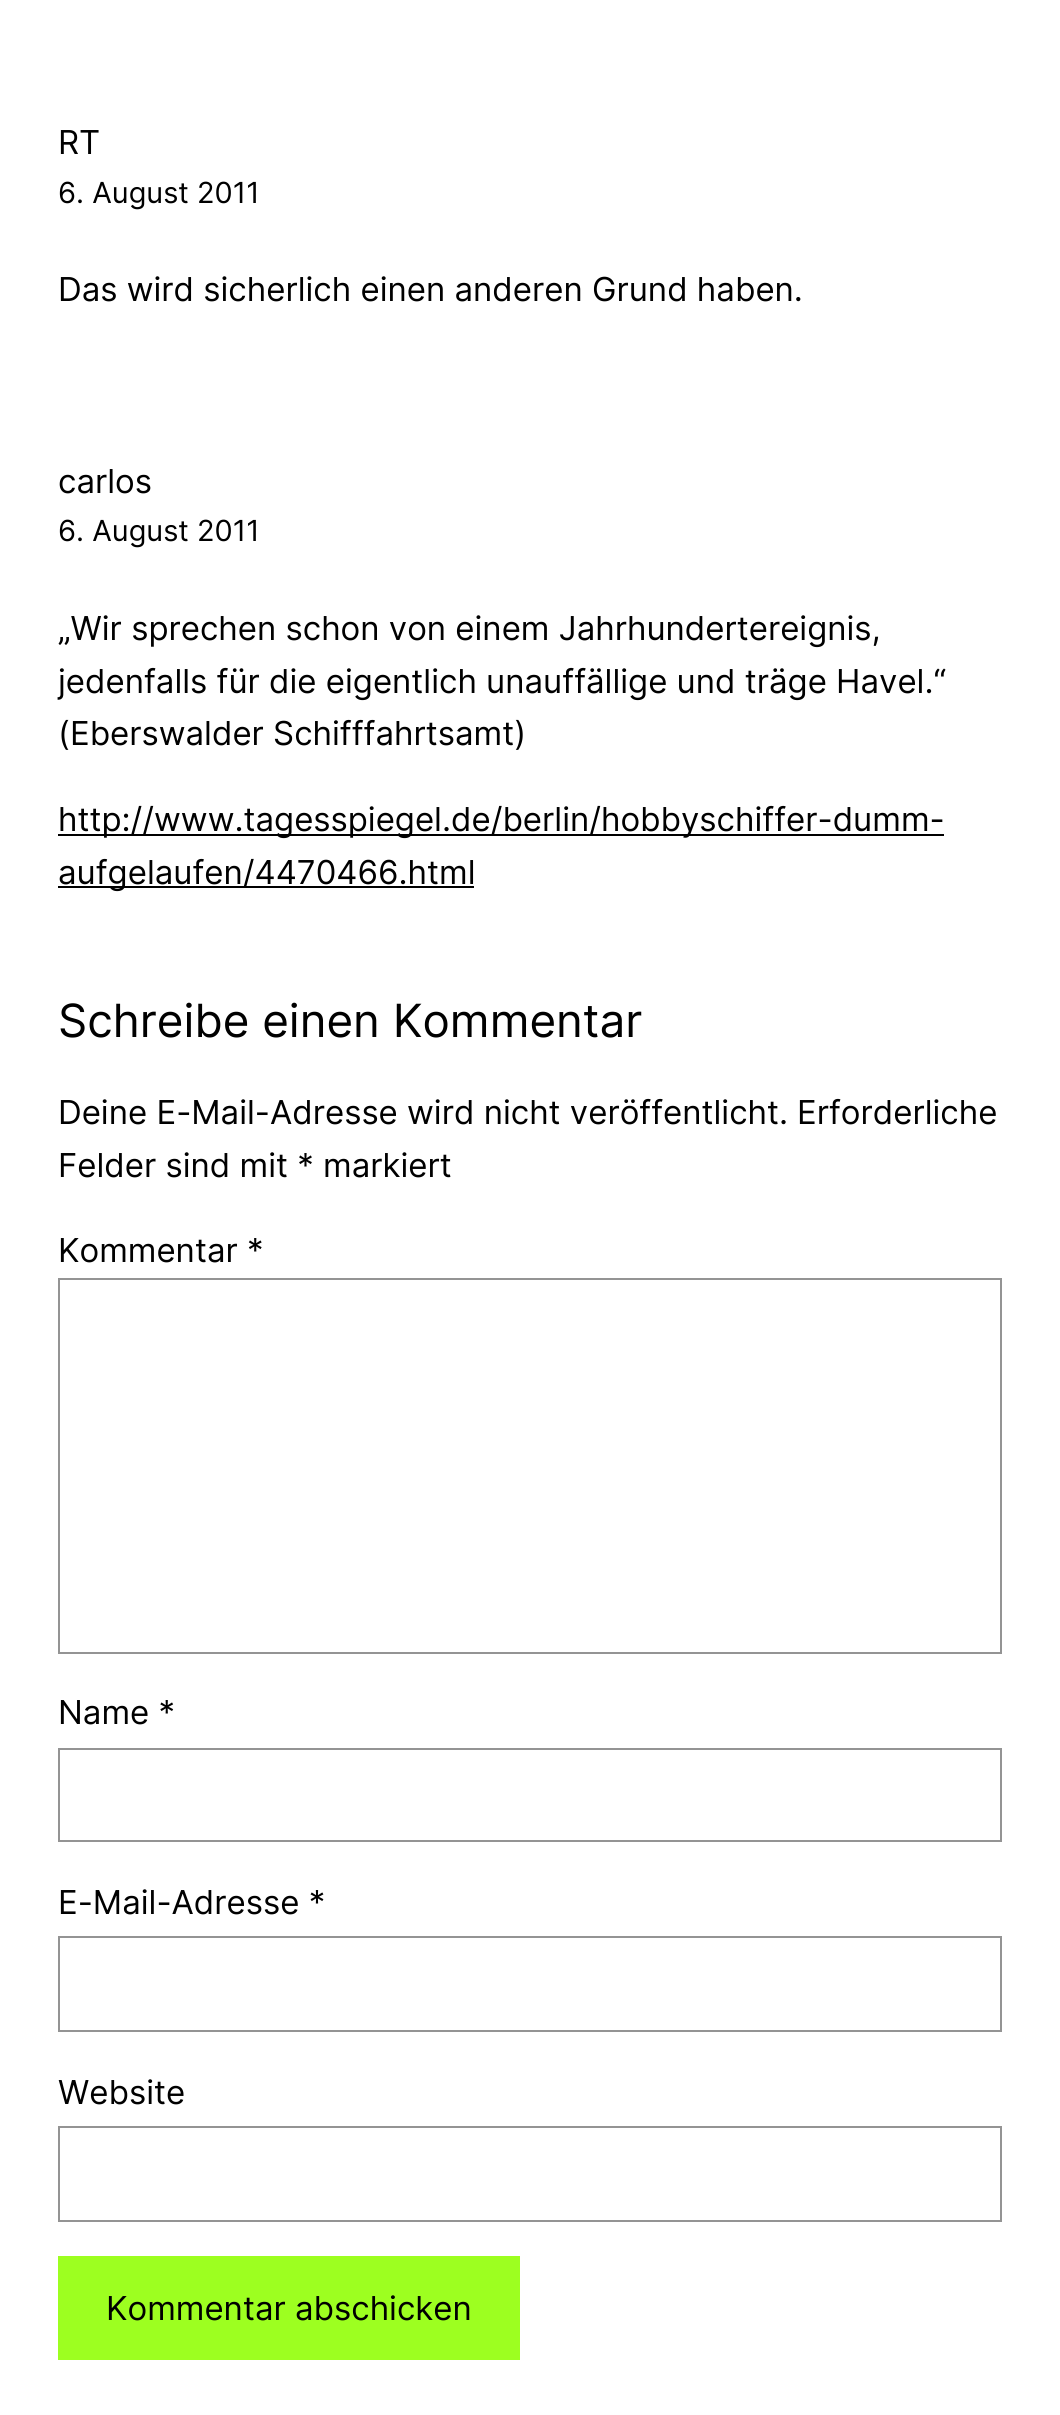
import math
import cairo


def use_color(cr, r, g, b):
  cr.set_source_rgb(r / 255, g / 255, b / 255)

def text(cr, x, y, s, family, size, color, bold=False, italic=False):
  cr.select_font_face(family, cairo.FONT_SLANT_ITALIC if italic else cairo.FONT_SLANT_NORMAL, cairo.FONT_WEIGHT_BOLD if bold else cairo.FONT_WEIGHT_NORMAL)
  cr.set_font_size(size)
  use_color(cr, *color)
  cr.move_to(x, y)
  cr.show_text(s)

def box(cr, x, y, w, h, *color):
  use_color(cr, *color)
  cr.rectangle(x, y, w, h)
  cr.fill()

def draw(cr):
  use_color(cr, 255, 255, 255)
  cr.paint()
  box(cr, 58, 834, 886, 2, 0, 0, 0)
  box(cr, 58, 886, 416, 2, 0, 0, 0)
  cr.rectangle(59, 1279, 942, 374)
  use_color(cr, 148, 148, 148)
  cr.stroke()
  cr.rectangle(59, 1749, 942, 92)
  cr.stroke()
  cr.rectangle(59, 1937, 942, 94)
  cr.stroke()
  cr.rectangle(59, 2127, 942, 94)
  cr.stroke()
  box(cr, 58, 2256, 462, 104, 157, 255, 32)
  text(cr, 58, 154, "RT", "Inter", 32.95, (0, 0, 0))
  text(cr, 58, 203, "6. August 2011", "Inter", 29, (0, 0, 0))
  text(cr, 58, 301, "Das wird sicherlich einen anderen Grund haben.", "Inter", 32.95, (0, 0, 0))
  text(cr, 58, 493, "carlos", "Inter", 32.95, (0, 0, 0))
  text(cr, 58, 541, "6. August 2011", "Inter", 29, (0, 0, 0))
  text(cr, 58, 640, "„Wir sprechen schon von einem Jahrhundertereignis,", "Inter", 32.95, (0, 0, 0))
  text(cr, 58, 693, "jedenfalls für die eigentlich unauffällige und träge Havel.“", "Inter", 32.95, (0, 0, 0))
  text(cr, 58, 745, "(Eberswalder Schifffahrtsamt)", "Inter", 32.95, (0, 0, 0))
  text(cr, 58, 831, "http://www.tagesspiegel.de/berlin/hobbyschiffer-dumm-", "Inter", 32.95, (0, 0, 0))
  text(cr, 58, 884, "aufgelaufen/4470466.html", "Inter", 32.95, (0, 0, 0))
  text(cr, 58, 1037, "Schreibe einen Kommentar", "Inter", 45.75, (0, 0, 0))
  text(cr, 58, 1124, "Deine E-Mail-Adresse wird nicht veröffentlicht.", "Inter", 32.95, (0, 0, 0))
  text(cr, 797, 1124, "Erforderliche", "Inter", 32.95, (0, 0, 0))
  text(cr, 58, 1177, "Felder sind mit * markiert", "Inter", 32.95, (0, 0, 0))
  text(cr, 58, 1262, "Kommentar *", "Inter", 32.95, (0, 0, 0))
  text(cr, 58, 1724, "Name *", "Inter", 32.95, (0, 0, 0))
  text(cr, 58, 1914, "E-Mail-Adresse *", "Inter", 32.95, (0, 0, 0))
  text(cr, 58, 2104, "Website", "Inter", 32.95, (0, 0, 0))
  text(cr, 106, 2320, "Kommentar abschicken", "Inter", 32.95, (0, 0, 0))


surface = cairo.ImageSurface(cairo.FORMAT_RGB24, 1060, 2415)
cr = cairo.Context(surface)
options = cairo.FontOptions()
options.set_hint_metrics(cairo.HINT_METRICS_OFF)
options.set_hint_style(cairo.HINT_STYLE_NONE)
cr.set_font_options(options)
cr.set_miter_limit(4)
draw(cr)
surface.write_to_png("out.png")
